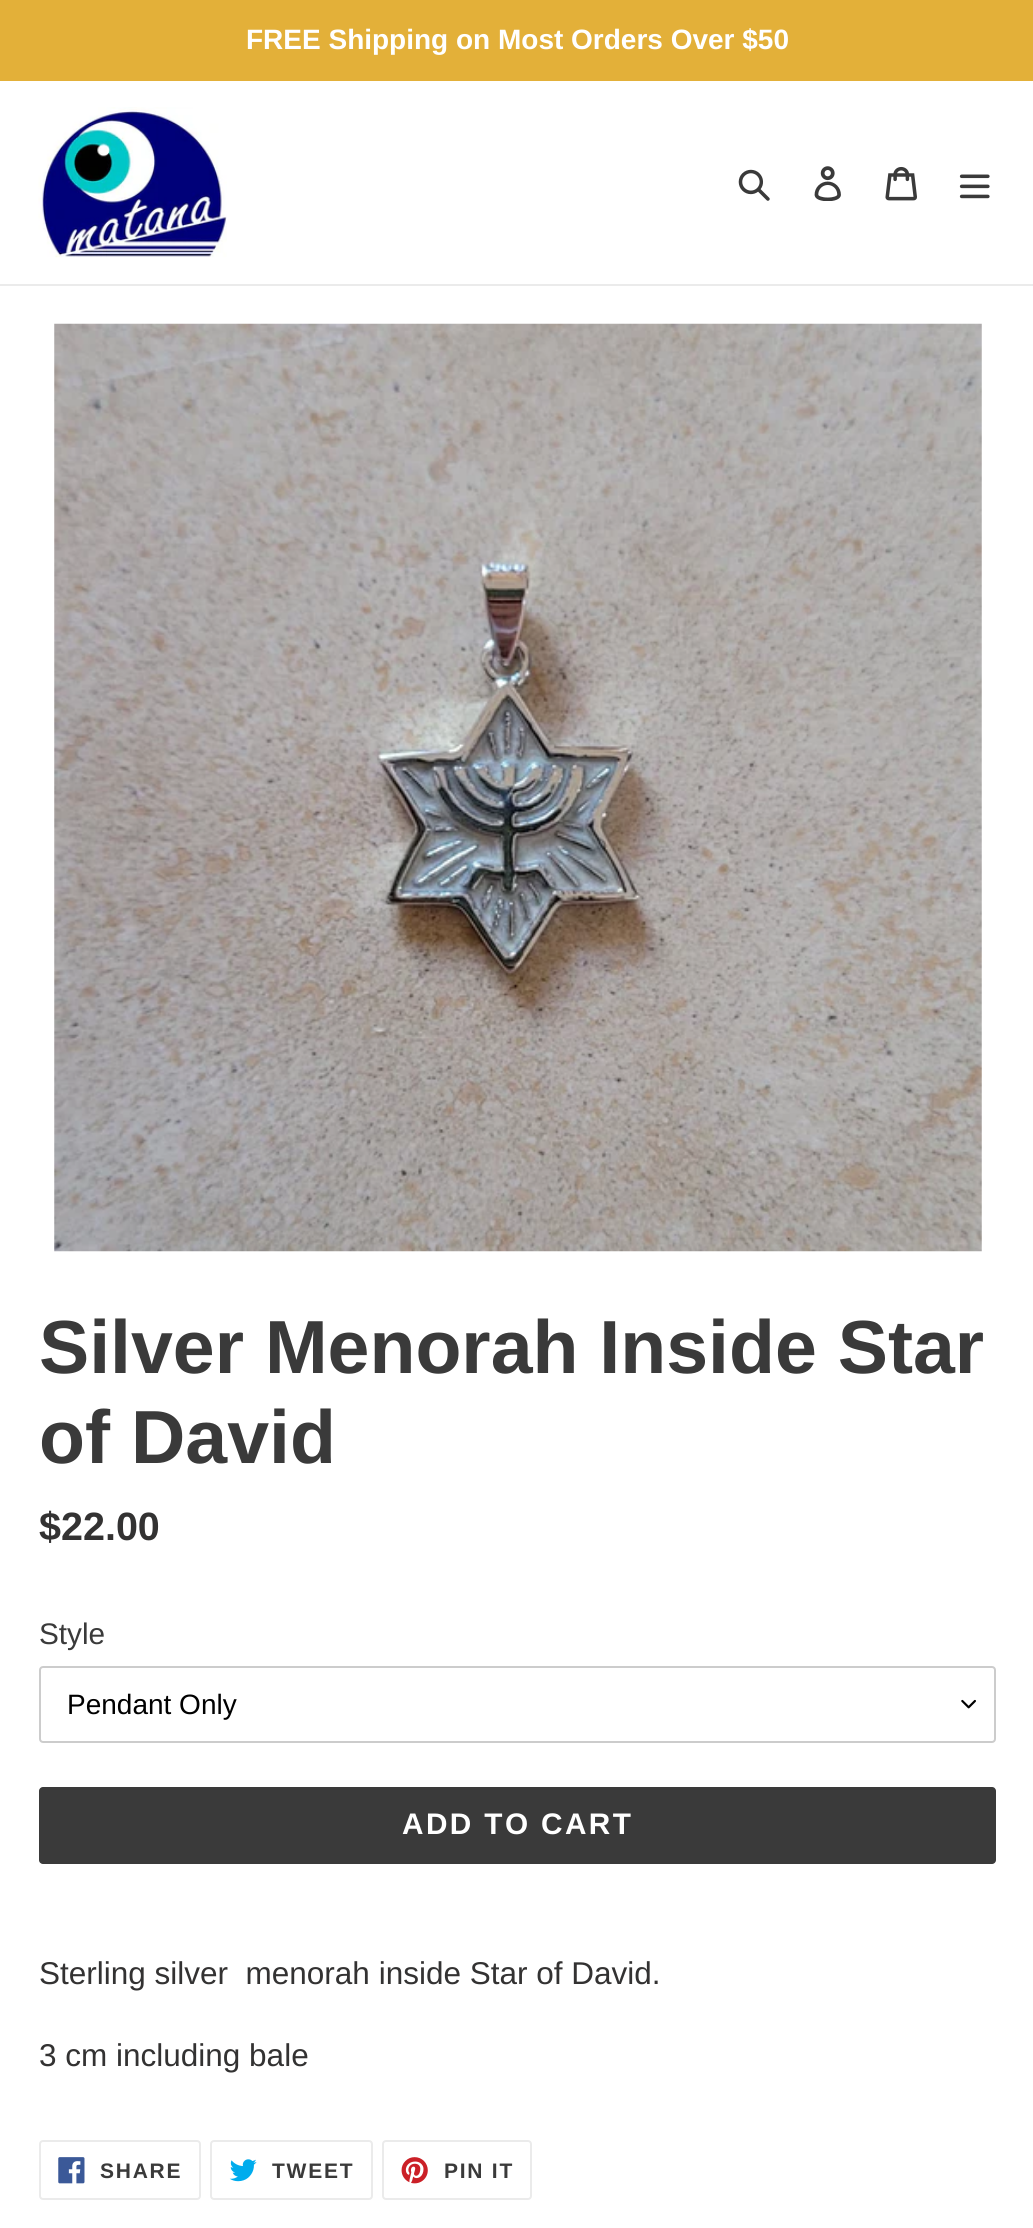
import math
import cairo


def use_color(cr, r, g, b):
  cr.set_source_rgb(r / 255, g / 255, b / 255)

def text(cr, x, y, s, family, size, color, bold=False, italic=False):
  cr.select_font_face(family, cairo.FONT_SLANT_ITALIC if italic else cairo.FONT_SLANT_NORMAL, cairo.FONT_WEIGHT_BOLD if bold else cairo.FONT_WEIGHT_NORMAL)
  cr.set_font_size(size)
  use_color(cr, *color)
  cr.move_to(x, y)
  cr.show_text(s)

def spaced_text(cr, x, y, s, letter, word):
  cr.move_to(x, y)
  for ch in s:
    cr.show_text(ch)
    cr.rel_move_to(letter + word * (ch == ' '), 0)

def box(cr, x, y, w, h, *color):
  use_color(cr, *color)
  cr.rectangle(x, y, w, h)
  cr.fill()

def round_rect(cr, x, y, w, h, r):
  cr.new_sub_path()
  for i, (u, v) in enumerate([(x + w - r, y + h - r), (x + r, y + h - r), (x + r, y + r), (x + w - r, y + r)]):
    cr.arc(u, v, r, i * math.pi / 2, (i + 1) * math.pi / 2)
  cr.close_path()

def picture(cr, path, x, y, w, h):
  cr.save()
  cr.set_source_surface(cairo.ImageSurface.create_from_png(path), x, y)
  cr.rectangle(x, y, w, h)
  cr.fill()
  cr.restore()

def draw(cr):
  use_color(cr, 255, 255, 255)
  cr.paint()
  box(cr, 0, 0, 1033, 81, 227, 176, 57)
  box(cr, 0, 284, 1033, 2, 235, 235, 235)
  picture(cr, "img_01.png", 38, 107, 189, 151)
  picture(cr, "img_02.png", 738, 169, 32, 32)
  picture(cr, "img_03.png", 814, 166, 27, 35)
  picture(cr, "img_04.png", 885, 166, 32, 35)
  picture(cr, "img_05.png", 959, 174, 31, 25)
  picture(cr, "img_06.png", 54, 323, 928, 929)
  picture(cr, "img_07.png", 961, 1699, 15, 10)
  round_rect(cr, 40, 1667, 955, 75, 3)
  use_color(cr, 204, 204, 204)
  cr.stroke()
  use_color(cr, 58, 58, 58)
  round_rect(cr, 39, 1787, 957, 77, 4)
  cr.fill()
  round_rect(cr, 40, 2141, 160, 58, 3)
  use_color(cr, 235, 235, 235)
  cr.stroke()
  picture(cr, "img_08.png", 58, 2157, 27, 27)
  round_rect(cr, 211, 2141, 161, 58, 3)
  cr.stroke()
  picture(cr, "img_09.png", 229, 2159, 28, 23)
  round_rect(cr, 383, 2141, 148, 58, 3)
  cr.stroke()
  picture(cr, "img_10.png", 401, 2157, 27, 27)
  text(cr, 246, 49, "FREE Shipping on Most Orders Over $50", "Liberation Sans", 28, (255, 255, 255), bold=True)
  text(cr, 39, 1373, "Silver Menorah Inside Star", "Liberation Sans", 75.25, (58, 58, 58), bold=True)
  text(cr, 39, 1463, "of David", "Liberation Sans", 75.25, (58, 58, 58), bold=True)
  text(cr, 39, 1540, "$22.00", "Liberation Sans", 39.5, (51, 50, 50), bold=True)
  text(cr, 39, 1644, "Style", "Liberation Sans", 29.75, (58, 58, 58))
  text(cr, 67, 1714, "Pendant Only", "Liberation Sans", 28, (0, 0, 0))
  cr.select_font_face("Liberation Sans", cairo.FONT_SLANT_NORMAL, cairo.FONT_WEIGHT_BOLD)
  cr.set_font_size(29.75)
  use_color(cr, 255, 255, 255)
  spaced_text(cr, 402, 1834, "ADD TO CART", 2.4, 0)
  text(cr, 39, 1984, "Sterling silver  menorah inside Star of David.", "Liberation Sans", 31.5, (51, 50, 50))
  text(cr, 39, 2066, "3 cm including bale", "Liberation Sans", 31.5, (51, 50, 50))
  cr.select_font_face("Liberation Sans", cairo.FONT_SLANT_NORMAL, cairo.FONT_WEIGHT_BOLD)
  cr.set_font_size(21)
  use_color(cr, 58, 58, 58)
  spaced_text(cr, 100, 2178, "SHARE", 1.75, 0)
  spaced_text(cr, 272, 2178, "TWEET", 1.75, 0)
  spaced_text(cr, 444, 2178, "PIN IT", 1.75, 0)


surface = cairo.ImageSurface(cairo.FORMAT_RGB24, 1033, 2228)
cr = cairo.Context(surface)
options = cairo.FontOptions()
options.set_hint_metrics(cairo.HINT_METRICS_OFF)
options.set_hint_style(cairo.HINT_STYLE_NONE)
cr.set_font_options(options)
cr.set_miter_limit(4)
draw(cr)
surface.write_to_png("out.png")
